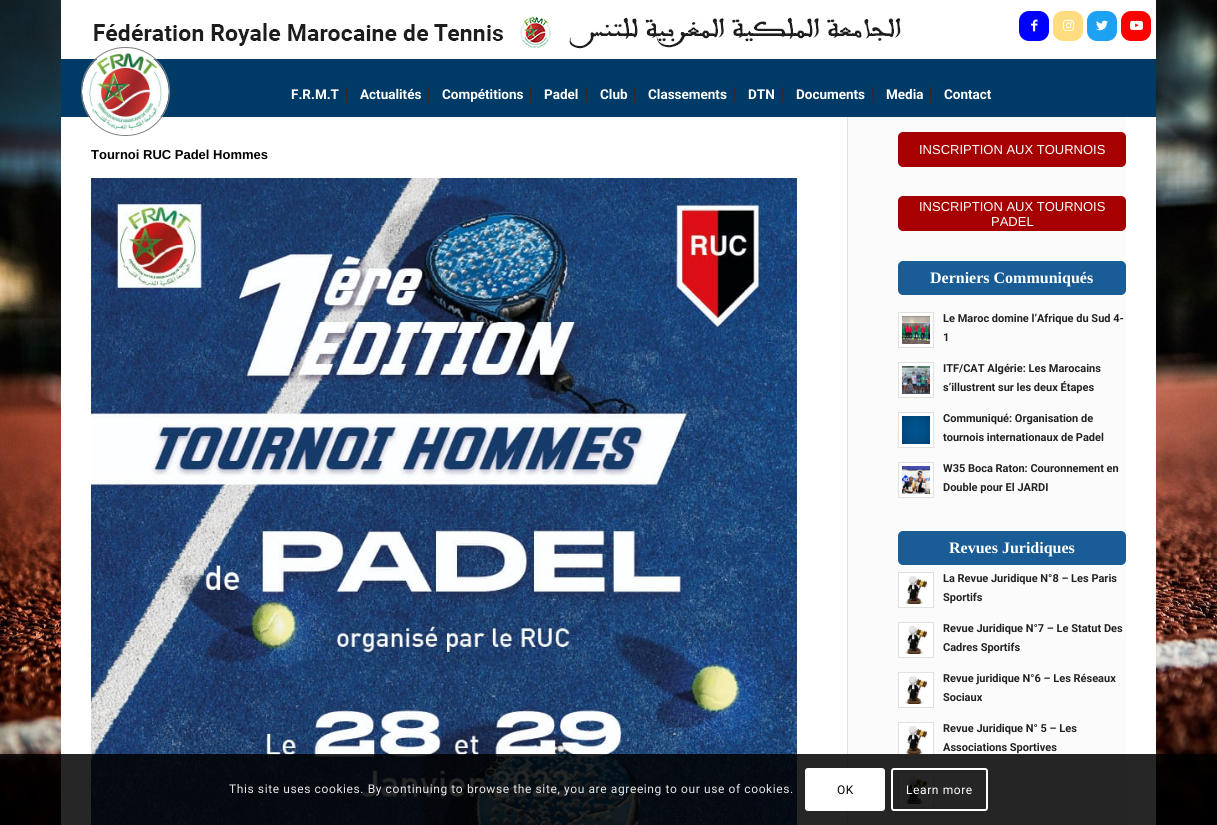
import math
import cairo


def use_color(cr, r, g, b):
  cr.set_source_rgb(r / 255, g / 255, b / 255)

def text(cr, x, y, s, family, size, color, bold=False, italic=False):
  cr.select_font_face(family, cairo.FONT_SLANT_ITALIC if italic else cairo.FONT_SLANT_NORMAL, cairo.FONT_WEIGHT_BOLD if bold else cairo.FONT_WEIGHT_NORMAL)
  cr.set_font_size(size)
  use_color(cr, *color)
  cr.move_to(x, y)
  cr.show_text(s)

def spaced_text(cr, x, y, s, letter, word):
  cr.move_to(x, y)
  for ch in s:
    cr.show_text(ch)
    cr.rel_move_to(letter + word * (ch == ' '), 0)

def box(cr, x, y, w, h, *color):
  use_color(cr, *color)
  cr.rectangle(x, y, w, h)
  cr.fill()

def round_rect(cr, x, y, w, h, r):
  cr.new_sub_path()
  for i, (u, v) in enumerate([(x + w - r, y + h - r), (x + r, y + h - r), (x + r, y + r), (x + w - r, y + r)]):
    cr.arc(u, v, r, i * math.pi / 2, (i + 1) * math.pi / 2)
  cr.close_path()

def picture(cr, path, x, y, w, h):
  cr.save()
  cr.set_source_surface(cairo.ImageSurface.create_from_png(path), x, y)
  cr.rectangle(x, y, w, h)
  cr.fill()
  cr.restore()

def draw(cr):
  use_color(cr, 255, 255, 255)
  cr.paint()
  picture(cr, "img_01.png", 0, 0, 1217, 825)
  box(cr, 61, 0, 1095, 59, 255, 255, 255)
  picture(cr, "img_02.png", 94, 15, 807, 34)
  use_color(cr, 0, 0, 255)
  round_rect(cr, 1019, 11, 30, 30, 10)
  cr.fill()
  picture(cr, "img_03.png", 1031, 19, 7, 13)
  use_color(cr, 255, 220, 128)
  round_rect(cr, 1053, 11, 30, 30, 10)
  cr.fill()
  picture(cr, "img_04.png", 1063, 19, 12, 12)
  use_color(cr, 29, 161, 242)
  round_rect(cr, 1087, 11, 30, 30, 10)
  cr.fill()
  picture(cr, "img_05.png", 1096, 20, 12, 11)
  use_color(cr, 255, 0, 0)
  round_rect(cr, 1121, 11, 30, 30, 10)
  cr.fill()
  picture(cr, "img_06.png", 1130, 20, 13, 10)
  box(cr, 61, 59, 1095, 58, 0, 59, 104)
  box(cr, 61, 117, 1095, 708, 255, 255, 255)
  round_rect(cr, 81.5, 47.5, 88, 88, 43.5)
  use_color(cr, 128, 128, 128)
  cr.set_line_width(1)
  cr.stroke()
  picture(cr, "img_07.png", 82, 51, 87, 84)
  box(cr, 346, 86, 1, 16, 48, 38, 48)
  box(cr, 428, 86, 1, 16, 48, 38, 48)
  box(cr, 530, 86, 1, 16, 48, 38, 48)
  box(cr, 586, 86, 1, 16, 48, 38, 48)
  box(cr, 634, 86, 1, 16, 48, 38, 48)
  box(cr, 734, 86, 1, 16, 48, 38, 48)
  box(cr, 782, 86, 1, 16, 48, 38, 48)
  box(cr, 872, 86, 1, 16, 48, 38, 48)
  box(cr, 930, 86, 1, 16, 48, 38, 48)
  picture(cr, "img_08.png", 91, 178, 706, 647)
  cr.set_source_rgba(0.984, 0.984, 0.984, 0.93)
  cr.rectangle(848, 117, 278, 708)
  cr.fill()
  box(cr, 847, 117, 1, 708, 225, 225, 225)
  use_color(cr, 167, 0, 0)
  round_rect(cr, 898, 132, 228, 35, 5)
  cr.fill()
  round_rect(cr, 898, 196, 228, 35, 5)
  cr.fill()
  use_color(cr, 25, 92, 150)
  round_rect(cr, 898, 261, 228, 34, 5)
  cr.fill()
  use_color(cr, 255, 255, 255)
  cr.rectangle(898.5, 312.5, 35, 35)
  cr.fill_preserve()
  use_color(cr, 225, 225, 225)
  cr.stroke()
  picture(cr, "img_09.png", 902, 316, 28, 28)
  use_color(cr, 255, 255, 255)
  cr.rectangle(898.5, 362.5, 35, 35)
  cr.fill_preserve()
  use_color(cr, 225, 225, 225)
  cr.stroke()
  picture(cr, "img_10.png", 902, 366, 28, 28)
  use_color(cr, 255, 255, 255)
  cr.rectangle(898.5, 412.5, 35, 35)
  cr.fill_preserve()
  use_color(cr, 225, 225, 225)
  cr.stroke()
  picture(cr, "img_11.png", 902, 416, 28, 28)
  use_color(cr, 255, 255, 255)
  cr.rectangle(898.5, 462.5, 35, 35)
  cr.fill_preserve()
  use_color(cr, 225, 225, 225)
  cr.stroke()
  picture(cr, "img_12.png", 902, 466, 28, 28)
  use_color(cr, 25, 92, 150)
  round_rect(cr, 898, 531, 228, 34, 5)
  cr.fill()
  use_color(cr, 255, 255, 255)
  cr.rectangle(898.5, 572.5, 35, 35)
  cr.fill_preserve()
  use_color(cr, 225, 225, 225)
  cr.stroke()
  picture(cr, "img_13.png", 905, 576, 23, 28)
  use_color(cr, 255, 255, 255)
  cr.rectangle(898.5, 622.5, 35, 35)
  cr.fill_preserve()
  use_color(cr, 225, 225, 225)
  cr.stroke()
  picture(cr, "img_13.png", 905, 626, 23, 28)
  use_color(cr, 255, 255, 255)
  cr.rectangle(898.5, 672.5, 35, 35)
  cr.fill_preserve()
  use_color(cr, 225, 225, 225)
  cr.stroke()
  picture(cr, "img_13.png", 905, 676, 23, 28)
  use_color(cr, 255, 255, 255)
  cr.rectangle(898.5, 722.5, 35, 35)
  cr.fill_preserve()
  use_color(cr, 225, 225, 225)
  cr.stroke()
  picture(cr, "img_13.png", 905, 726, 23, 28)
  use_color(cr, 255, 255, 255)
  cr.rectangle(898.5, 772.5, 35, 35)
  cr.fill_preserve()
  use_color(cr, 225, 225, 225)
  cr.stroke()
  picture(cr, "img_13.png", 905, 776, 23, 28)
  cr.set_source_rgba(0, 0, 0, 0.85)
  cr.rectangle(0, 754, 1217, 71)
  cr.fill()
  use_color(cr, 255, 255, 255)
  round_rect(cr, 805, 768, 80, 43, 3)
  cr.fill()
  round_rect(cr, 892, 769, 95, 41, 2)
  cr.set_line_width(2)
  cr.stroke()
  text(cr, 291, 99, "F.R.M.T", "Roboto", 13.5, (255, 255, 255), bold=True)
  text(cr, 360, 99, "Actualités", "Roboto", 13.5, (255, 255, 255), bold=True)
  text(cr, 442, 99, "Compétitions", "Roboto", 13.5, (255, 255, 255), bold=True)
  text(cr, 544, 99, "Padel", "Roboto", 13.5, (255, 255, 255), bold=True)
  text(cr, 600, 99, "Club", "Roboto", 13.5, (255, 255, 255), bold=True)
  text(cr, 648, 99, "Classements", "Roboto", 13.5, (255, 255, 255), bold=True)
  text(cr, 748, 99, "DTN", "Roboto", 13.5, (255, 255, 255), bold=True)
  text(cr, 796, 99, "Documents", "Roboto", 13.5, (255, 255, 255), bold=True)
  text(cr, 886, 99, "Media", "Roboto", 13.5, (255, 255, 255), bold=True)
  text(cr, 944, 99, "Contact", "Roboto", 13.5, (255, 255, 255), bold=True)
  text(cr, 91, 159, "Tournoi RUC Padel Hommes", "Liberation Sans", 13, (0, 0, 0), bold=True)
  text(cr, 919, 154, "INSCRIPTION AUX TOURNOIS", "Liberation Sans", 13, (255, 255, 255))
  text(cr, 919, 211, "INSCRIPTION AUX TOURNOIS", "Liberation Sans", 13, (255, 255, 255))
  text(cr, 991, 226, "PADEL", "Liberation Sans", 13, (255, 255, 255))
  text(cr, 930, 283, "Derniers Communiqués", "Liberation Serif", 16, (255, 255, 255), bold=True)
  text(cr, 943, 322, "Le Maroc domine l’Afrique du Sud 4-", "Roboto", 11, (34, 34, 34), bold=True)
  text(cr, 943, 341, "1", "Roboto", 11, (34, 34, 34), bold=True)
  text(cr, 943, 372, "ITF/CAT Algérie: Les Marocains", "Roboto", 11, (34, 34, 34), bold=True)
  text(cr, 943, 391, "s’illustrent sur les deux Étapes", "Roboto", 11, (34, 34, 34), bold=True)
  text(cr, 943, 422, "Communiqué: Organisation de", "Roboto", 11, (34, 34, 34), bold=True)
  text(cr, 943, 441, "tournois internationaux de Padel", "Roboto", 11, (34, 34, 34), bold=True)
  text(cr, 943, 472, "W35 Boca Raton: Couronnement en", "Roboto", 11, (34, 34, 34), bold=True)
  text(cr, 943, 491, "Double pour El JARDI", "Roboto", 11, (34, 34, 34), bold=True)
  text(cr, 949, 553, "Revues Juridiques", "Liberation Serif", 16, (255, 255, 255), bold=True)
  text(cr, 943, 582, "La Revue Juridique N°8 – Les Paris", "Roboto", 11, (34, 34, 34), bold=True)
  text(cr, 943, 601, "Sportifs", "Roboto", 11, (34, 34, 34), bold=True)
  text(cr, 943, 632, "Revue Juridique N°7 – Le Statut Des", "Roboto", 11, (34, 34, 34), bold=True)
  text(cr, 943, 651, "Cadres Sportifs", "Roboto", 11, (34, 34, 34), bold=True)
  text(cr, 943, 682, "Revue juridique N°6 – Les Réseaux", "Roboto", 11, (34, 34, 34), bold=True)
  text(cr, 943, 701, "Sociaux", "Roboto", 11, (34, 34, 34), bold=True)
  text(cr, 943, 732, "Revue Juridique N° 5 – Les", "Roboto", 11, (34, 34, 34), bold=True)
  text(cr, 943, 751, "Associations Sportives", "Roboto", 11, (34, 34, 34), bold=True)
  cr.select_font_face("Roboto")
  cr.set_font_size(12)
  use_color(cr, 231, 231, 232)
  spaced_text(cr, 229, 793, "This site uses cookies. By continuing to browse the site, you are agreeing to our use of cookies.", 0.6, 0)
  use_color(cr, 0, 0, 0)
  spaced_text(cr, 837, 794, "OK", 0.6, 0)
  use_color(cr, 255, 255, 255)
  spaced_text(cr, 906, 794, "Learn more", 0.6, 0)


surface = cairo.ImageSurface(cairo.FORMAT_RGB24, 1217, 825)
cr = cairo.Context(surface)
options = cairo.FontOptions()
options.set_hint_metrics(cairo.HINT_METRICS_OFF)
options.set_hint_style(cairo.HINT_STYLE_NONE)
cr.set_font_options(options)
cr.set_miter_limit(4)
draw(cr)
surface.write_to_png("out.png")
